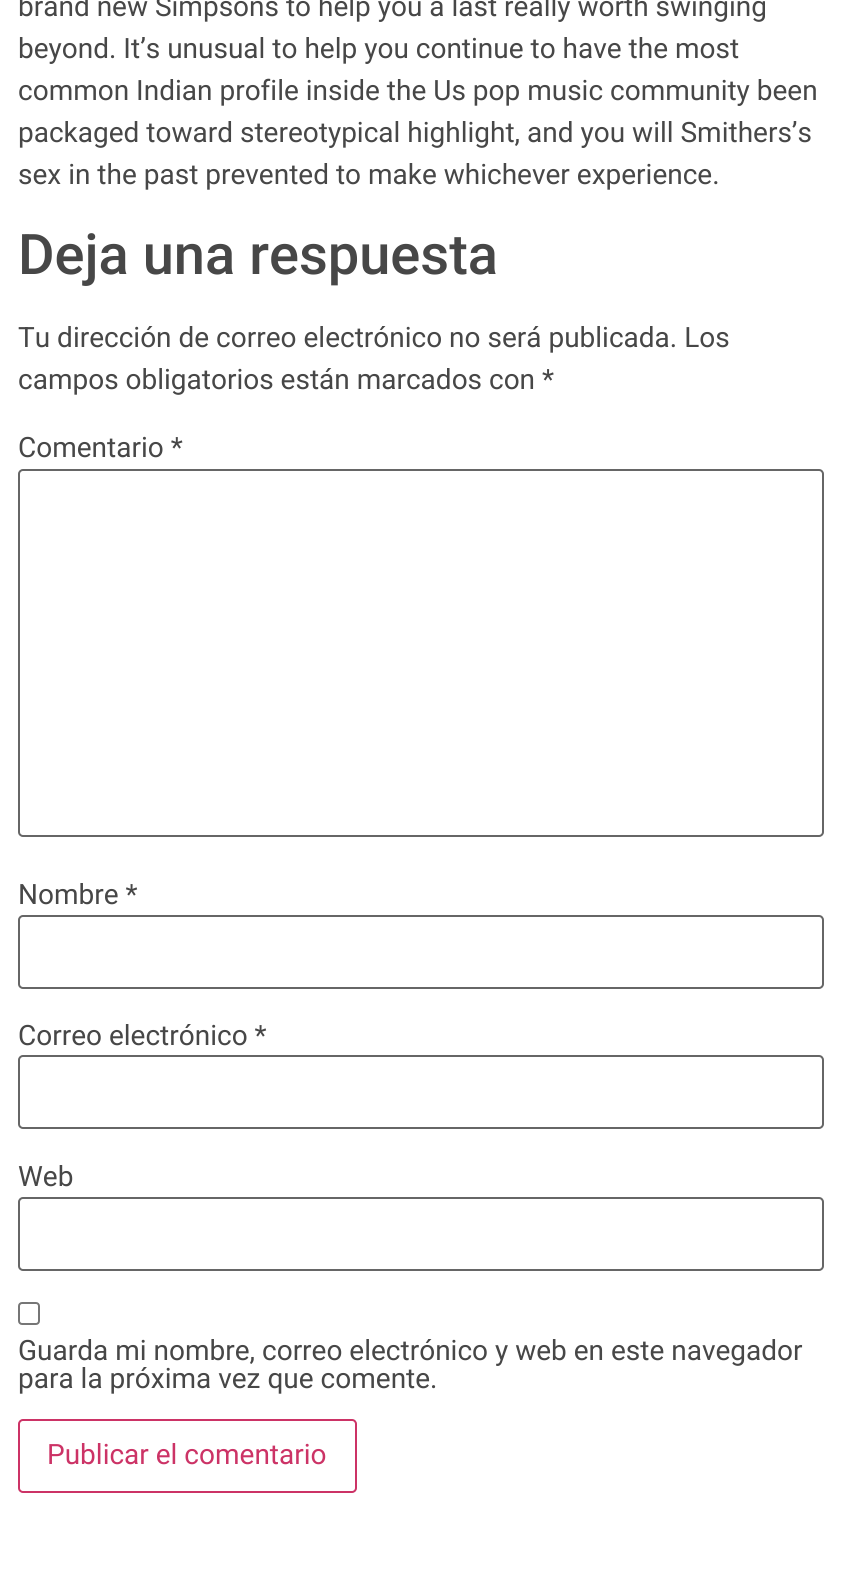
import math
import cairo


def use_color(cr, r, g, b):
  cr.set_source_rgb(r / 255, g / 255, b / 255)

def text(cr, x, y, s, family, size, color, bold=False, italic=False):
  cr.select_font_face(family, cairo.FONT_SLANT_ITALIC if italic else cairo.FONT_SLANT_NORMAL, cairo.FONT_WEIGHT_BOLD if bold else cairo.FONT_WEIGHT_NORMAL)
  cr.set_font_size(size)
  use_color(cr, *color)
  cr.move_to(x, y)
  cr.show_text(s)

def round_rect(cr, x, y, w, h, r):
  cr.new_sub_path()
  for i, (u, v) in enumerate([(x + w - r, y + h - r), (x + r, y + h - r), (x + r, y + r), (x + w - r, y + r)]):
    cr.arc(u, v, r, i * math.pi / 2, (i + 1) * math.pi / 2)
  cr.close_path()

def draw(cr):
  use_color(cr, 255, 255, 255)
  cr.paint()
  round_rect(cr, 19, 470, 804, 366, 4)
  use_color(cr, 102, 102, 102)
  cr.stroke()
  round_rect(cr, 19, 916, 804, 72, 4)
  cr.stroke()
  round_rect(cr, 19, 1056, 804, 72, 4)
  cr.stroke()
  round_rect(cr, 19, 1198, 804, 72, 4)
  cr.stroke()
  round_rect(cr, 19, 1303, 20, 21, 3)
  use_color(cr, 118, 118, 118)
  cr.stroke()
  round_rect(cr, 19, 1420, 337, 72, 4)
  use_color(cr, 204, 51, 102)
  cr.stroke()
  text(cr, 18, 16, "brand new Simpsons to help you a last really worth swinging", "Roboto", 28, (71, 71, 71))
  text(cr, 18, 58, "beyond. It’s unusual to help you continue to have the most", "Roboto", 28, (71, 71, 71))
  text(cr, 18, 100, "common Indian profile inside the Us pop music community been", "Roboto", 28, (71, 71, 71))
  text(cr, 18, 142, "packaged toward stereotypical highlight, and you will Smithers’s", "Roboto", 28, (71, 71, 71))
  text(cr, 18, 184, "sex in the past prevented to make whichever experience.", "Roboto", 28, (71, 71, 71))
  text(cr, 18, 274, "Deja una respuesta", "Roboto Medium", 56, (71, 71, 71))
  text(cr, 18, 347, "Tu dirección de correo electrónico no será publicada. Los", "Roboto", 28, (71, 71, 71))
  text(cr, 18, 389, "campos obligatorios están marcados con *", "Roboto", 28, (71, 71, 71))
  text(cr, 18, 457, "Comentario *", "Roboto", 28, (71, 71, 71))
  text(cr, 18, 904, "Nombre *", "Roboto", 28, (71, 71, 71))
  text(cr, 18, 1045, "Correo electrónico *", "Roboto", 28, (71, 71, 71))
  text(cr, 18, 1186, "Web", "Roboto", 28, (71, 71, 71))
  text(cr, 18, 1360, "Guarda mi nombre, correo electrónico y web en este navegador", "Roboto", 28, (71, 71, 71))
  text(cr, 18, 1388, "para la próxima vez que comente.", "Roboto", 28, (71, 71, 71))
  text(cr, 47, 1464, "Publicar el comentario", "Roboto", 28, (204, 51, 102))


surface = cairo.ImageSurface(cairo.FORMAT_RGB24, 841, 1572)
cr = cairo.Context(surface)
options = cairo.FontOptions()
options.set_hint_metrics(cairo.HINT_METRICS_OFF)
options.set_hint_style(cairo.HINT_STYLE_NONE)
cr.set_font_options(options)
cr.set_miter_limit(4)
draw(cr)
surface.write_to_png("out.png")
